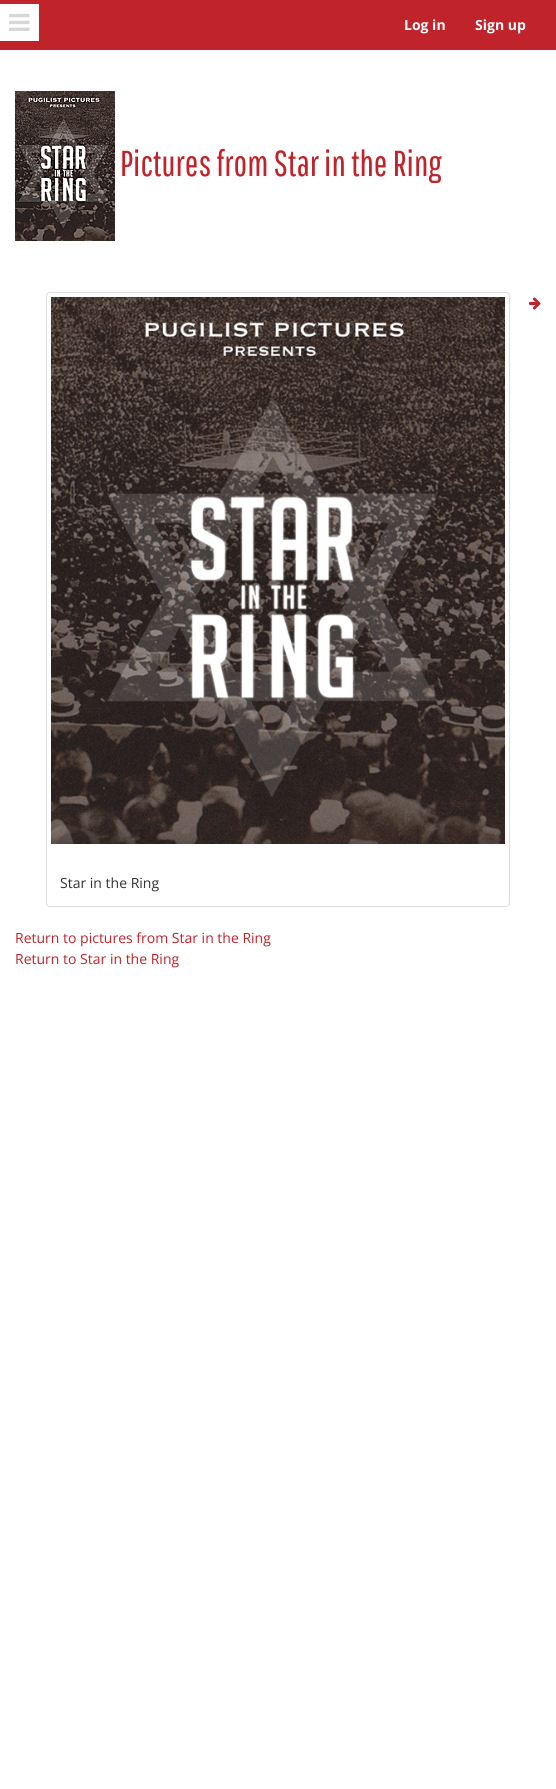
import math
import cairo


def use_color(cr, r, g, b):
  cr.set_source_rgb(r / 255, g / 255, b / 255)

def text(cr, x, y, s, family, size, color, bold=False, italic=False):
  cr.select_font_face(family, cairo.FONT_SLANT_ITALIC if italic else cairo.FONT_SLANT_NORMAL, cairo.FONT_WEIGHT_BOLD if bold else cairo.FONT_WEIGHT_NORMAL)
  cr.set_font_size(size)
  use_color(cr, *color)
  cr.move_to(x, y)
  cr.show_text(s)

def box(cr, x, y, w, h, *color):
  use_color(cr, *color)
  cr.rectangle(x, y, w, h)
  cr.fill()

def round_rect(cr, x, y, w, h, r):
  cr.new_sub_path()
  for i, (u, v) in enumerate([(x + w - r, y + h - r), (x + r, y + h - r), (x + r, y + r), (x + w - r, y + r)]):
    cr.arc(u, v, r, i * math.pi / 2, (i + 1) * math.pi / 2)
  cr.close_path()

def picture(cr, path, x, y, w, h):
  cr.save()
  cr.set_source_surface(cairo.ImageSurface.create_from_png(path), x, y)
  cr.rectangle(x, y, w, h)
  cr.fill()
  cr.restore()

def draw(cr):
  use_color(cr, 255, 255, 255)
  cr.paint()
  box(cr, 0, 0, 556, 50, 192, 35, 41)
  box(cr, 0, 4, 39, 37, 255, 255, 255)
  picture(cr, "img_01.png", 9, 13, 21, 18)
  picture(cr, "img_02.png", 15, 91, 100, 150)
  picture(cr, "img_03.png", 529, 297, 12, 13)
  round_rect(cr, 46.5, 292.5, 463, 614, 3.5)
  use_color(cr, 221, 221, 221)
  cr.set_line_width(1)
  cr.stroke()
  picture(cr, "img_04.png", 51, 297, 454, 547)
  text(cr, 404, 30, "Log in", "Open Sans", 14, (255, 255, 255), bold=True)
  text(cr, 475, 30, "Sign up", "Open Sans", 14, (255, 255, 255), bold=True)
  text(cr, 120, 176, "Pictures from Star in the Ring", "Pathway Gothic One", 36, (192, 35, 41))
  text(cr, 60, 888, "Star in the Ring", "Open Sans", 14, (51, 51, 51))
  text(cr, 15, 943, "Return to pictures from Star in the Ring", "Open Sans", 14, (192, 35, 41))
  text(cr, 15, 964, "Return to Star in the Ring", "Open Sans", 14, (192, 35, 41))


surface = cairo.ImageSurface(cairo.FORMAT_RGB24, 556, 1789)
cr = cairo.Context(surface)
options = cairo.FontOptions()
options.set_hint_metrics(cairo.HINT_METRICS_OFF)
options.set_hint_style(cairo.HINT_STYLE_NONE)
cr.set_font_options(options)
cr.set_miter_limit(4)
draw(cr)
surface.write_to_png("out.png")
